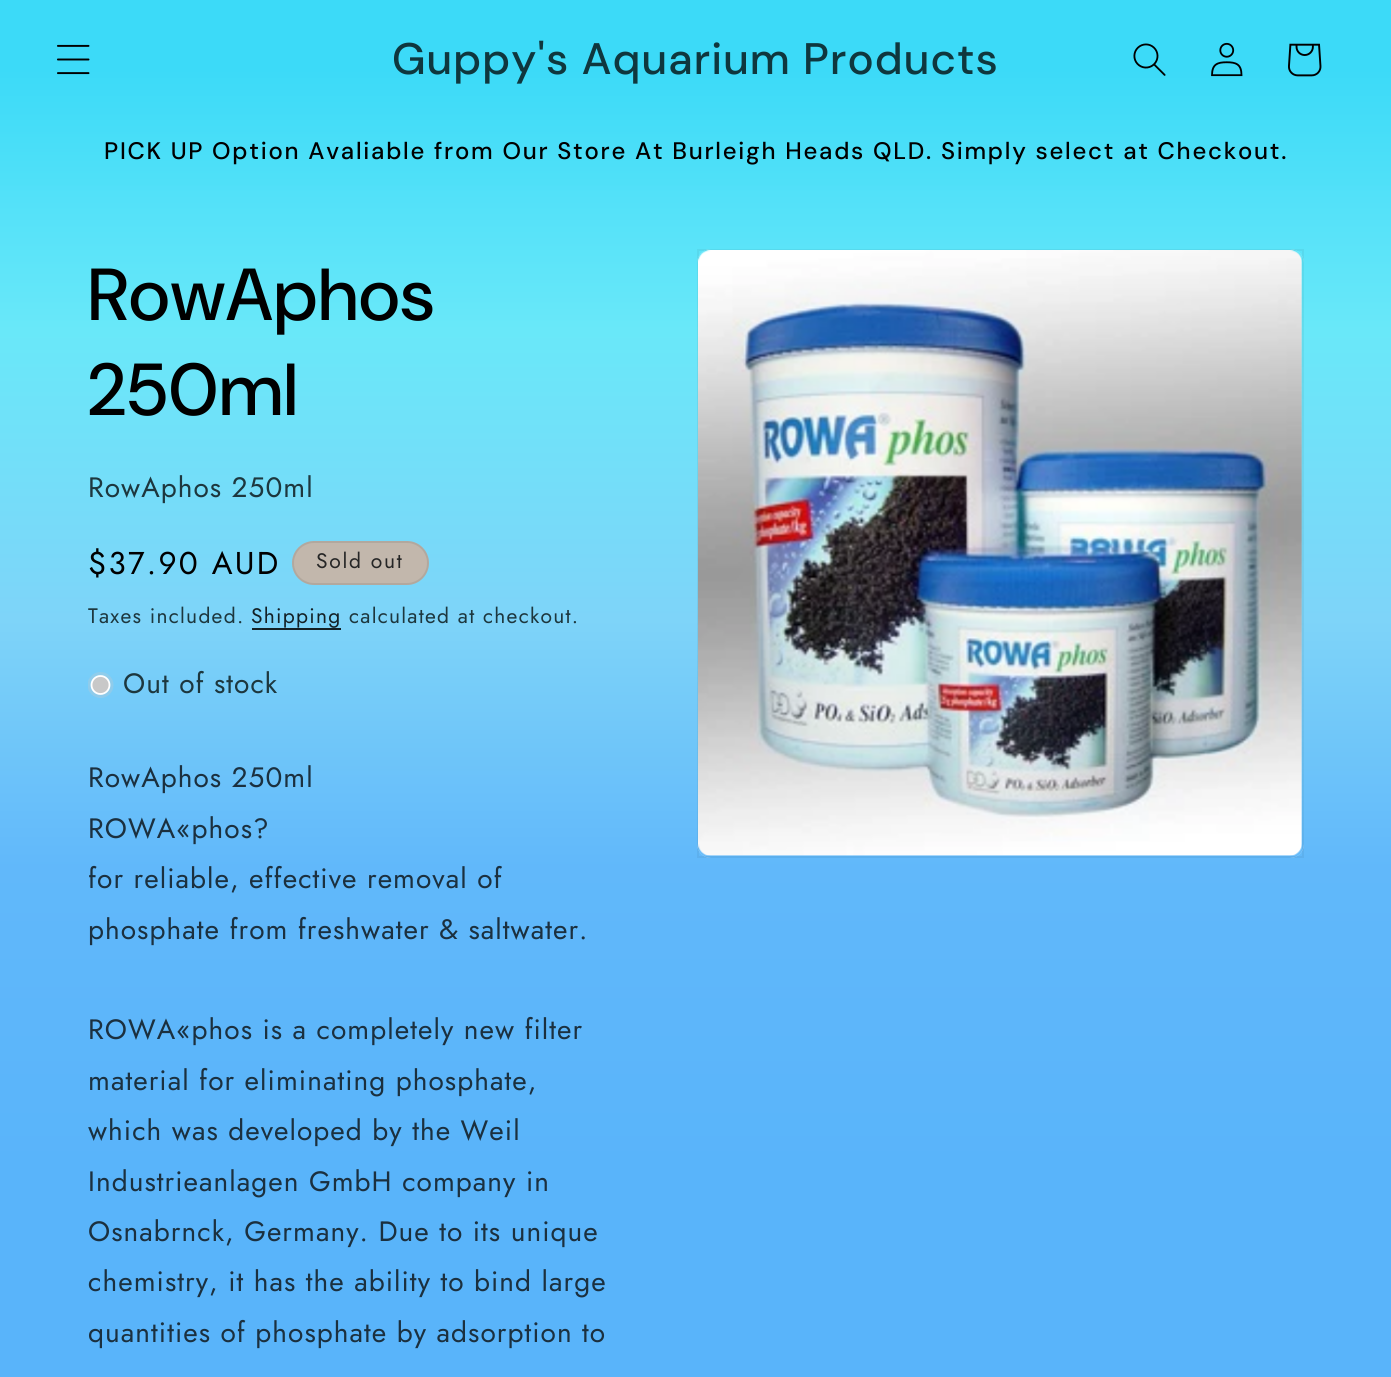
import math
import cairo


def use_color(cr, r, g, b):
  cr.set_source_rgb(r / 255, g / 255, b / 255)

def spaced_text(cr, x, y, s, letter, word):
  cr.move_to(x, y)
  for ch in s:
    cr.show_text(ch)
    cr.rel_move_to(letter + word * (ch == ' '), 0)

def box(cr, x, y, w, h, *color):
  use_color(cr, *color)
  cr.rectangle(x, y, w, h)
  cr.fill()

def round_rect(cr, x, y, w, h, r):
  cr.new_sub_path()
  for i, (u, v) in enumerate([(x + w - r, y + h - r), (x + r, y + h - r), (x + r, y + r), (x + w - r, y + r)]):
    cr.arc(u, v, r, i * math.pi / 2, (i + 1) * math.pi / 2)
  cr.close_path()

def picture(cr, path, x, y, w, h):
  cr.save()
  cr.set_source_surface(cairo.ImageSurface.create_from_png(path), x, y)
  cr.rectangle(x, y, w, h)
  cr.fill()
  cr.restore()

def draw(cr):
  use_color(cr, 255, 255, 255)
  cr.paint()
  gradient = cairo.LinearGradient(696, 1377, 696, 0)
  gradient.add_color_stop_rgba(0.15, 0.349, 0.706, 0.98, 1)
  gradient.add_color_stop_rgba(0.37, 0.38, 0.718, 0.976, 1)
  gradient.add_color_stop_rgba(0.55, 0.494, 0.831, 0.973, 1)
  gradient.add_color_stop_rgba(0.76, 0.408, 0.91, 0.976, 1)
  gradient.add_color_stop_rgba(0.95, 0.235, 0.855, 0.973, 1)
  cr.set_source(gradient)
  cr.rectangle(0, 0, 1391, 119)
  cr.fill()
  picture(cr, "img_01.png", 57, 44, 33, 31)
  picture(cr, "img_02.png", 1133, 43, 33, 33)
  picture(cr, "img_03.png", 1211, 42, 32, 35)
  picture(cr, "img_04.png", 1288, 43, 34, 34)
  cr.rectangle(0, 119, 1391, 67)
  cr.fill()
  gradient = cairo.LinearGradient(696, 1377, 696, 0)
  gradient.add_color_stop_rgba(0.15, 0.349, 0.706, 0.98, 1)
  gradient.add_color_stop_rgba(0.37, 0.38, 0.722, 0.98, 1)
  gradient.add_color_stop_rgba(0.55, 0.494, 0.831, 0.976, 1)
  gradient.add_color_stop_rgba(0.76, 0.412, 0.91, 0.976, 1)
  gradient.add_color_stop_rgba(0.95, 0.239, 0.855, 0.976, 1)
  cr.set_source(gradient)
  cr.rectangle(0, 186, 1391, 1191)
  cr.fill()
  use_color(cr, 194, 183, 172)
  round_rect(cr, 292, 541, 137, 44, 22)
  cr.fill()
  round_rect(cr, 293, 542, 135, 42, 21)
  cr.set_source_rgba(0.149, 0.149, 0.149, 0.1)
  cr.stroke()
  box(cr, 252, 628, 89, 2, 19, 32, 37)
  cr.save()
  cr.rectangle(88, 672, 26, 26)
  cr.clip()
  cr.set_source_rgba(0.784, 0.784, 0.784, 0.3)
  cr.arc(100.5, 685, 13, 0, 2 * math.pi)
  cr.fill()
  cr.restore()
  use_color(cr, 200, 200, 200)
  cr.arc(100.5, 685, 9, 0, 2 * math.pi)
  cr.fill_preserve()
  use_color(cr, 255, 255, 255)
  cr.set_line_width(1.8)
  cr.stroke()
  use_color(cr, 244, 244, 244)
  round_rect(cr, 697, 249, 607, 609, 14)
  cr.fill()
  gradient = cairo.LinearGradient(696, 1377, 696, 0)
  gradient.add_color_stop_rgba(0.15, 0.196, 0.643, 0.984, 0.8)
  gradient.add_color_stop_rgba(0.37, 0.196, 0.643, 0.984, 0.76)
  gradient.add_color_stop_rgba(0.55, 0.157, 0.737, 0.984, 0.58)
  gradient.add_color_stop_rgba(0.76, 0.114, 0.882, 0.984, 0.65)
  gradient.add_color_stop_rgba(0.95, 0.129, 0.839, 0.976, 0.87)
  cr.set_source(gradient)
  round_rect(cr, 697, 249, 607, 609, 14)
  cr.fill()
  cr.rectangle(698, 250, 605, 607)
  cr.set_source_rgba(0, 0, 0, 0.05)
  cr.set_line_width(2)
  cr.stroke()
  picture(cr, "img_05.png", 698, 250, 604, 606)
  cr.select_font_face("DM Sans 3 Medium")
  cr.set_font_size(44.1)
  use_color(cr, 15, 55, 62)
  spaced_text(cr, 392, 74, "Guppy's Aquarium Products", 1.1, 0)
  cr.select_font_face("DM Sans Medium")
  cr.set_font_size(23.9)
  use_color(cr, 0, 0, 0)
  spaced_text(cr, 104, 159, "PICK UP Option Avaliable from Our Store At Burleigh Heads QLD. Simply select at Checkout.", 1.75, 0)
  cr.select_font_face("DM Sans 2 Medium")
  cr.set_font_size(73.5)
  spaced_text(cr, 88, 320, "RowAphos", 1.1, 0)
  spaced_text(cr, 88, 415, "250ml", 1.1, 0)
  cr.select_font_face("Jost")
  cr.set_font_size(28)
  use_color(cr, 29, 55, 62)
  spaced_text(cr, 88, 497, "RowAphos 250ml", 1.05, 0)
  cr.set_font_size(31.5)
  use_color(cr, 0, 0, 0)
  spaced_text(cr, 88, 574, "$37.90 AUD", 2.25, 0)
  cr.set_font_size(21)
  use_color(cr, 38, 38, 38)
  spaced_text(cr, 316, 568, "Sold out", 1.75, 0)
  use_color(cr, 29, 55, 62)
  spaced_text(cr, 88, 623, "Taxes included.", 1.25, 0)
  use_color(cr, 19, 32, 37)
  spaced_text(cr, 251, 623, "Shipping", 1.25, 0)
  use_color(cr, 29, 55, 62)
  spaced_text(cr, 349, 623, "calculated at checkout.", 1.25, 0)
  cr.set_font_size(28)
  spaced_text(cr, 123, 693, "Out of stock", 1.05, 0)
  use_color(cr, 27, 48, 63)
  spaced_text(cr, 88, 787, "RowAphos 250ml", 1.05, 0)
  spaced_text(cr, 88, 838, "ROWA«phos?", 1.05, 0)
  spaced_text(cr, 88, 888, "for reliable, effective removal of", 1.05, 0)
  spaced_text(cr, 88, 939, "phosphate from freshwater & saltwater.", 1.05, 0)
  spaced_text(cr, 88, 1039, "ROWA«phos is a completely new filter", 1.05, 0)
  spaced_text(cr, 88, 1090, "material for eliminating phosphate,", 1.05, 0)
  spaced_text(cr, 88, 1140, "which was developed by the Weil", 1.05, 0)
  spaced_text(cr, 88, 1191, "Industrieanlagen GmbH company in", 1.05, 0)
  spaced_text(cr, 88, 1241, "Osnabrnck, Germany. Due to its unique", 1.05, 0)
  spaced_text(cr, 88, 1291, "chemistry, it has the ability to bind large", 1.05, 0)
  spaced_text(cr, 88, 1342, "quantities of phosphate by adsorption to", 1.05, 0)


surface = cairo.ImageSurface(cairo.FORMAT_RGB24, 1391, 1377)
cr = cairo.Context(surface)
options = cairo.FontOptions()
options.set_hint_metrics(cairo.HINT_METRICS_OFF)
options.set_hint_style(cairo.HINT_STYLE_NONE)
cr.set_font_options(options)
cr.set_miter_limit(4)
draw(cr)
surface.write_to_png("out.png")
